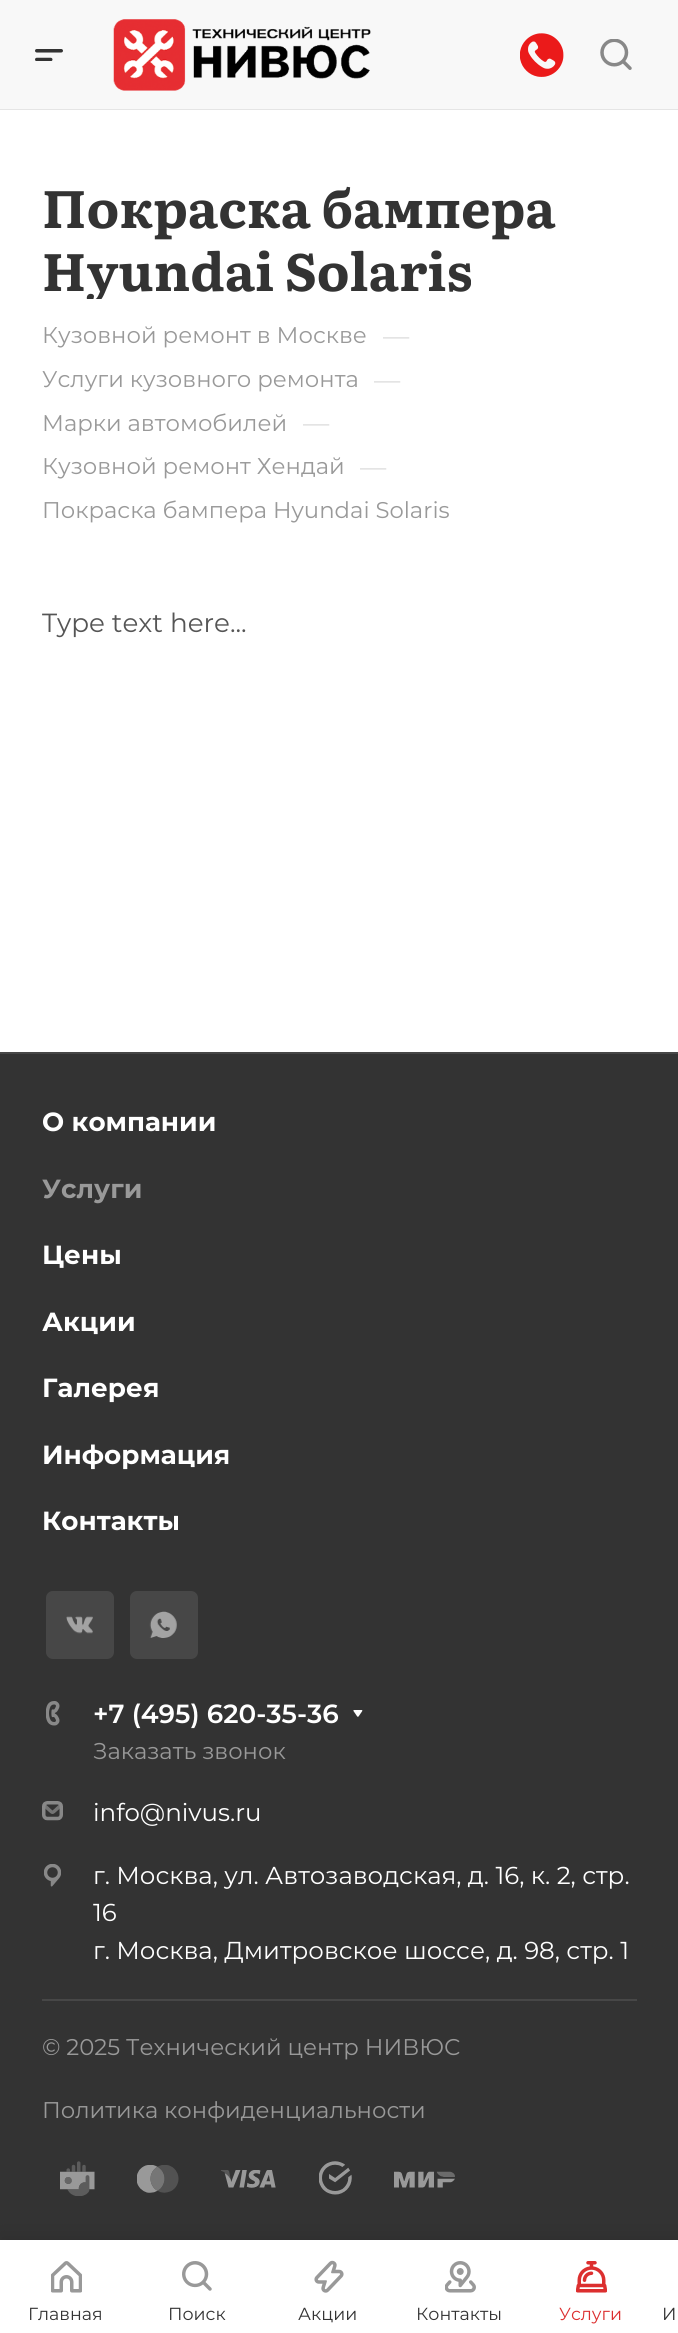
import math
import cairo


def use_color(cr, r, g, b):
  cr.set_source_rgb(r / 255, g / 255, b / 255)

def text(cr, x, y, s, family, size, color, bold=False, italic=False):
  cr.select_font_face(family, cairo.FONT_SLANT_ITALIC if italic else cairo.FONT_SLANT_NORMAL, cairo.FONT_WEIGHT_BOLD if bold else cairo.FONT_WEIGHT_NORMAL)
  cr.set_font_size(size)
  use_color(cr, *color)
  cr.move_to(x, y)
  cr.show_text(s)

def box(cr, x, y, w, h, *color):
  use_color(cr, *color)
  cr.rectangle(x, y, w, h)
  cr.fill()

def round_rect(cr, x, y, w, h, r):
  cr.new_sub_path()
  for i, (u, v) in enumerate([(x + w - r, y + h - r), (x + r, y + h - r), (x + r, y + r), (x + w - r, y + r)]):
    cr.arc(u, v, r, i * math.pi / 2, (i + 1) * math.pi / 2)
  cr.close_path()

def shadow(cr, x, y, w, h, r, blur, alpha):
  cr.push_group_with_content(cairo.CONTENT_ALPHA)
  cr.set_operator(cairo.OPERATOR_SOURCE)
  for i in range(15, -16, -2):
    e = blur * i / 6
    if min(w, h) + 2 * e > 0:
      cr.set_source_rgba(0, 0, 0, alpha * math.erfc((i - 1) / 8.5) / 2)
      round_rect(cr, x - e, y - e, w + 2 * e, h + 2 * e, max(0, min(r + e + blur * .6, min(w, h) / 2 + e)))
      cr.fill()
  cr.mask(cr.pop_group())

def picture(cr, path, x, y, w, h):
  cr.save()
  cr.set_source_surface(cairo.ImageSurface.create_from_png(path), x, y)
  cr.rectangle(x, y, w, h)
  cr.fill()
  cr.restore()

def draw(cr):
  use_color(cr, 255, 255, 255)
  cr.paint()
  box(cr, 0, 109, 678, 1, 229, 229, 229)
  box(cr, 0, 0, 678, 109, 248, 248, 248)
  picture(cr, "img_01.png", 35, 49, 28, 12)
  picture(cr, "img_02.png", 113, 19, 258, 72)
  picture(cr, "img_03.png", 520, 33, 44, 44)
  picture(cr, "img_04.png", 600, 39, 32, 31)
  box(cr, 0, 1054, 678, 1186, 51, 51, 51)
  box(cr, 0, 1052, 678, 2, 71, 71, 71)
  round_rect(cr, 46, 1591, 68, 68, 7)
  cr.fill()
  picture(cr, "img_05.png", 66, 1616, 27, 18)
  round_rect(cr, 130, 1591, 68, 68, 7)
  cr.fill()
  picture(cr, "img_06.png", 149, 1611, 28, 27)
  picture(cr, "img_07.png", 46, 1701, 14, 25)
  picture(cr, "img_08.png", 353, 1710, 10, 7)
  picture(cr, "img_09.png", 42, 1801, 21, 20)
  picture(cr, "img_10.png", 44, 1864, 17, 23)
  box(cr, 42, 1999, 595, 2, 71, 71, 71)
  picture(cr, "img_11.png", 60, 2161, 35, 35)
  picture(cr, "img_12.png", 137, 2165, 42, 28)
  picture(cr, "img_13.png", 221, 2170, 55, 18)
  picture(cr, "img_14.png", 319, 2161, 33, 34)
  picture(cr, "img_15.png", 394, 2171, 61, 17)
  use_color(cr, 0, 0, 0)
  shadow(cr, 0, 2235, 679, 94, 0, 9, 0.1)
  box(cr, 0, 2240, 678, 93, 255, 255, 255)
  picture(cr, "img_16.png", 51, 2261, 31, 32)
  picture(cr, "img_17.png", 182, 2261, 30, 30)
  picture(cr, "img_18.png", 314, 2260, 30, 33)
  picture(cr, "img_19.png", 445, 2261, 31, 32)
  picture(cr, "img_20.png", 576, 2261, 31, 32)
  text(cr, 42, 228, "Покраска бампера", "Literata", 52.5, (51, 51, 51), bold=True)
  cr.save()
  cr.rectangle(42, 173, 595, 126)
  cr.clip()
  text(cr, 42, 291, "Hyundai Solaris", "Literata", 52.5, (51, 51, 51), bold=True)
  cr.restore()
  text(cr, 42, 343, "Кузовной ремонт в Москве", "Montserrat", 22.75, (153, 153, 153))
  text(cr, 383, 345, "—", "Montserrat", 26.25, (221, 221, 221))
  text(cr, 42, 387, "Услуги кузовного ремонта", "Montserrat", 22.75, (153, 153, 153))
  text(cr, 374, 389, "—", "Montserrat", 26.25, (221, 221, 221))
  text(cr, 42, 431, "Марки автомобилей", "Montserrat", 22.75, (153, 153, 153))
  text(cr, 303, 432, "—", "Montserrat", 26.25, (221, 221, 221))
  text(cr, 42, 474, "Кузовной ремонт Хендай", "Montserrat", 22.75, (153, 153, 153))
  text(cr, 360, 476, "—", "Montserrat", 26.25, (221, 221, 221))
  text(cr, 42, 518, "Покраска бампера Hyundai Solaris", "Montserrat", 22.75, (153, 153, 153))
  text(cr, 42, 632, "Type text here...", "Montserrat", 26.25, (85, 85, 85))
  text(cr, 42, 1131, "О компании", "Montserrat", 26.25, (255, 255, 255), bold=True)
  text(cr, 42, 1198, "Услуги", "Montserrat", 26.25, (153, 153, 153), bold=True)
  text(cr, 42, 1264, "Цены", "Montserrat", 26.25, (255, 255, 255), bold=True)
  text(cr, 42, 1331, "Акции", "Montserrat", 26.25, (255, 255, 255), bold=True)
  text(cr, 42, 1397, "Галерея", "Montserrat", 26.25, (255, 255, 255), bold=True)
  text(cr, 42, 1464, "Информация", "Montserrat", 26.25, (255, 255, 255), bold=True)
  text(cr, 42, 1530, "Контакты", "Montserrat", 26.25, (255, 255, 255), bold=True)
  text(cr, 93, 1723, "+7 (495) 620-35-36", "Montserrat SemiBold", 26.25, (255, 255, 255))
  text(cr, 93, 1759, "Заказать звонок", "Montserrat", 22.75, (153, 153, 153))
  text(cr, 93, 1821, "info@nivus.ru", "Montserrat", 24.5, (255, 255, 255))
  text(cr, 93, 1884, "г. Москва, ул. Автозаводская, д. 16, к. 2, стр.", "Montserrat", 24.5, (255, 255, 255))
  text(cr, 93, 1921, "16", "Montserrat", 24.5, (255, 255, 255))
  text(cr, 93, 1959, "г. Москва, Дмитровское шоссе, д. 98, стр. 1", "Montserrat", 24.5, (255, 255, 255))
  text(cr, 42, 2055, "© 2025 Технический центр НИВЮС", "Montserrat", 22.75, (153, 153, 153))
  text(cr, 42, 2118, "Политика конфиденциальности", "Montserrat", 22.75, (153, 153, 153))
  text(cr, 28, 2320, "Главная", "Montserrat", 17.5, (51, 51, 51))
  text(cr, 168, 2320, "Поиск", "Montserrat", 17.5, (51, 51, 51))
  text(cr, 298, 2320, "Акции", "Montserrat", 17.5, (51, 51, 51))
  text(cr, 416, 2320, "Контакты", "Montserrat", 17.5, (51, 51, 51))
  text(cr, 559, 2320, "Услуги", "Montserrat", 17.5, (220, 47, 47))
  text(cr, 662, 2320, "И", "Montserrat", 17.5, (51, 51, 51))


surface = cairo.ImageSurface(cairo.FORMAT_RGB24, 678, 2333)
cr = cairo.Context(surface)
options = cairo.FontOptions()
options.set_hint_metrics(cairo.HINT_METRICS_OFF)
options.set_hint_style(cairo.HINT_STYLE_NONE)
cr.set_font_options(options)
cr.set_miter_limit(4)
draw(cr)
surface.write_to_png("out.png")
